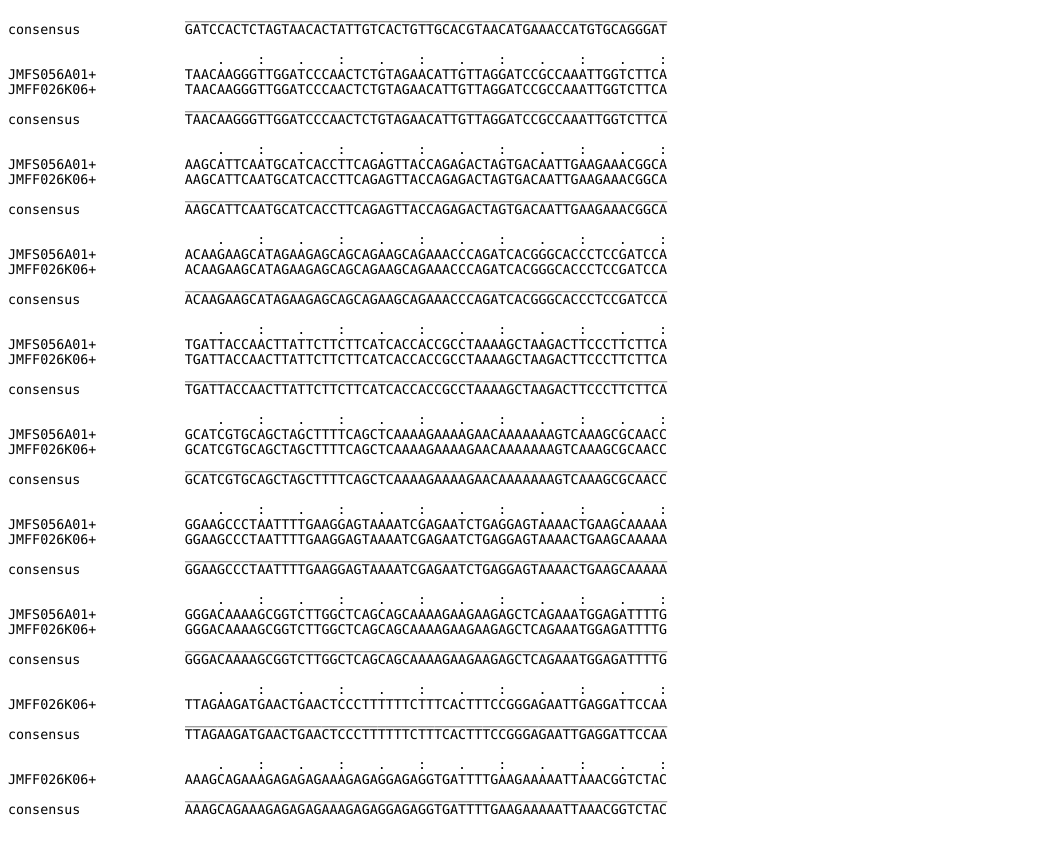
import math
import cairo


def use_color(cr, r, g, b):
  cr.set_source_rgb(r / 255, g / 255, b / 255)

def text(cr, x, y, s, family, size, color, bold=False, italic=False):
  cr.select_font_face(family, cairo.FONT_SLANT_ITALIC if italic else cairo.FONT_SLANT_NORMAL, cairo.FONT_WEIGHT_BOLD if bold else cairo.FONT_WEIGHT_NORMAL)
  cr.set_font_size(size)
  use_color(cr, *color)
  cr.move_to(x, y)
  cr.show_text(s)

def draw(cr):
  use_color(cr, 255, 255, 255)
  cr.paint()
  text(cr, 185, 19, "____________________________________________________________", "DejaVu Sans Mono", 13.35, (0, 0, 0))
  text(cr, 8, 34, "consensus             GATCCACTCTAGTAACACTATTGTCACTGTTGCACGTAACATGAAACCATGTGCAGGGAT", "DejaVu Sans Mono", 13.35, (0, 0, 0))
  text(cr, 217, 64, ".    :    .    :    .    :    .    :    .    :    .    :", "DejaVu Sans Mono", 13.35, (0, 0, 0))
  text(cr, 8, 79, "JMFS056A01+           TAACAAGGGTTGGATCCCAACTCTGTAGAACATTGTTAGGATCCGCCAAATTGGTCTTCA", "DejaVu Sans Mono", 13.35, (0, 0, 0))
  text(cr, 8, 94, "JMFF026K06+           TAACAAGGGTTGGATCCCAACTCTGTAGAACATTGTTAGGATCCGCCAAATTGGTCTTCA", "DejaVu Sans Mono", 13.35, (0, 0, 0))
  text(cr, 185, 109, "____________________________________________________________", "DejaVu Sans Mono", 13.35, (0, 0, 0))
  text(cr, 8, 124, "consensus             TAACAAGGGTTGGATCCCAACTCTGTAGAACATTGTTAGGATCCGCCAAATTGGTCTTCA", "DejaVu Sans Mono", 13.35, (0, 0, 0))
  text(cr, 217, 154, ".    :    .    :    .    :    .    :    .    :    .    :", "DejaVu Sans Mono", 13.35, (0, 0, 0))
  text(cr, 8, 169, "JMFS056A01+           AAGCATTCAATGCATCACCTTCAGAGTTACCAGAGACTAGTGACAATTGAAGAAACGGCA", "DejaVu Sans Mono", 13.35, (0, 0, 0))
  text(cr, 8, 184, "JMFF026K06+           AAGCATTCAATGCATCACCTTCAGAGTTACCAGAGACTAGTGACAATTGAAGAAACGGCA", "DejaVu Sans Mono", 13.35, (0, 0, 0))
  text(cr, 185, 199, "____________________________________________________________", "DejaVu Sans Mono", 13.35, (0, 0, 0))
  text(cr, 8, 214, "consensus             AAGCATTCAATGCATCACCTTCAGAGTTACCAGAGACTAGTGACAATTGAAGAAACGGCA", "DejaVu Sans Mono", 13.35, (0, 0, 0))
  text(cr, 217, 244, ".    :    .    :    .    :    .    :    .    :    .    :", "DejaVu Sans Mono", 13.35, (0, 0, 0))
  text(cr, 8, 259, "JMFS056A01+           ACAAGAAGCATAGAAGAGCAGCAGAAGCAGAAACCCAGATCACGGGCACCCTCCGATCCA", "DejaVu Sans Mono", 13.35, (0, 0, 0))
  text(cr, 8, 274, "JMFF026K06+           ACAAGAAGCATAGAAGAGCAGCAGAAGCAGAAACCCAGATCACGGGCACCCTCCGATCCA", "DejaVu Sans Mono", 13.35, (0, 0, 0))
  text(cr, 185, 289, "____________________________________________________________", "DejaVu Sans Mono", 13.35, (0, 0, 0))
  text(cr, 8, 304, "consensus             ACAAGAAGCATAGAAGAGCAGCAGAAGCAGAAACCCAGATCACGGGCACCCTCCGATCCA", "DejaVu Sans Mono", 13.35, (0, 0, 0))
  text(cr, 217, 334, ".    :    .    :    .    :    .    :    .    :    .    :", "DejaVu Sans Mono", 13.35, (0, 0, 0))
  text(cr, 8, 349, "JMFS056A01+           TGATTACCAACTTATTCTTCTTCATCACCACCGCCTAAAAGCTAAGACTTCCCTTCTTCA", "DejaVu Sans Mono", 13.35, (0, 0, 0))
  text(cr, 8, 364, "JMFF026K06+           TGATTACCAACTTATTCTTCTTCATCACCACCGCCTAAAAGCTAAGACTTCCCTTCTTCA", "DejaVu Sans Mono", 13.35, (0, 0, 0))
  text(cr, 185, 379, "____________________________________________________________", "DejaVu Sans Mono", 13.35, (0, 0, 0))
  text(cr, 8, 394, "consensus             TGATTACCAACTTATTCTTCTTCATCACCACCGCCTAAAAGCTAAGACTTCCCTTCTTCA", "DejaVu Sans Mono", 13.35, (0, 0, 0))
  text(cr, 217, 424, ".    :    .    :    .    :    .    :    .    :    .    :", "DejaVu Sans Mono", 13.35, (0, 0, 0))
  text(cr, 8, 439, "JMFS056A01+           GCATCGTGCAGCTAGCTTTTCAGCTCAAAAGAAAAGAACAAAAAAAGTCAAAGCGCAACC", "DejaVu Sans Mono", 13.35, (0, 0, 0))
  text(cr, 8, 454, "JMFF026K06+           GCATCGTGCAGCTAGCTTTTCAGCTCAAAAGAAAAGAACAAAAAAAGTCAAAGCGCAACC", "DejaVu Sans Mono", 13.35, (0, 0, 0))
  text(cr, 185, 469, "____________________________________________________________", "DejaVu Sans Mono", 13.35, (0, 0, 0))
  text(cr, 8, 484, "consensus             GCATCGTGCAGCTAGCTTTTCAGCTCAAAAGAAAAGAACAAAAAAAGTCAAAGCGCAACC", "DejaVu Sans Mono", 13.35, (0, 0, 0))
  text(cr, 217, 514, ".    :    .    :    .    :    .    :    .    :    .    :", "DejaVu Sans Mono", 13.35, (0, 0, 0))
  text(cr, 8, 529, "JMFS056A01+           GGAAGCCCTAATTTTGAAGGAGTAAAATCGAGAATCTGAGGAGTAAAACTGAAGCAAAAA", "DejaVu Sans Mono", 13.35, (0, 0, 0))
  text(cr, 8, 544, "JMFF026K06+           GGAAGCCCTAATTTTGAAGGAGTAAAATCGAGAATCTGAGGAGTAAAACTGAAGCAAAAA", "DejaVu Sans Mono", 13.35, (0, 0, 0))
  text(cr, 185, 559, "____________________________________________________________", "DejaVu Sans Mono", 13.35, (0, 0, 0))
  text(cr, 8, 574, "consensus             GGAAGCCCTAATTTTGAAGGAGTAAAATCGAGAATCTGAGGAGTAAAACTGAAGCAAAAA", "DejaVu Sans Mono", 13.35, (0, 0, 0))
  text(cr, 217, 604, ".    :    .    :    .    :    .    :    .    :    .    :", "DejaVu Sans Mono", 13.35, (0, 0, 0))
  text(cr, 8, 619, "JMFS056A01+           GGGACAAAAGCGGTCTTGGCTCAGCAGCAAAAGAAGAAGAGCTCAGAAATGGAGATTTTG", "DejaVu Sans Mono", 13.35, (0, 0, 0))
  text(cr, 8, 634, "JMFF026K06+           GGGACAAAAGCGGTCTTGGCTCAGCAGCAAAAGAAGAAGAGCTCAGAAATGGAGATTTTG", "DejaVu Sans Mono", 13.35, (0, 0, 0))
  text(cr, 185, 649, "____________________________________________________________", "DejaVu Sans Mono", 13.35, (0, 0, 0))
  text(cr, 8, 664, "consensus             GGGACAAAAGCGGTCTTGGCTCAGCAGCAAAAGAAGAAGAGCTCAGAAATGGAGATTTTG", "DejaVu Sans Mono", 13.35, (0, 0, 0))
  text(cr, 217, 694, ".    :    .    :    .    :    .    :    .    :    .    :", "DejaVu Sans Mono", 13.35, (0, 0, 0))
  text(cr, 8, 709, "JMFF026K06+           TTAGAAGATGAACTGAACTCCCTTTTTTCTTTCACTTTCCGGGAGAATTGAGGATTCCAA", "DejaVu Sans Mono", 13.35, (0, 0, 0))
  text(cr, 185, 724, "____________________________________________________________", "DejaVu Sans Mono", 13.35, (0, 0, 0))
  text(cr, 8, 739, "consensus             TTAGAAGATGAACTGAACTCCCTTTTTTCTTTCACTTTCCGGGAGAATTGAGGATTCCAA", "DejaVu Sans Mono", 13.35, (0, 0, 0))
  text(cr, 217, 769, ".    :    .    :    .    :    .    :    .    :    .    :", "DejaVu Sans Mono", 13.35, (0, 0, 0))
  text(cr, 8, 784, "JMFF026K06+           AAAGCAGAAAGAGAGAGAAAGAGAGGAGAGGTGATTTTGAAGAAAAATTAAACGGTCTAC", "DejaVu Sans Mono", 13.35, (0, 0, 0))
  text(cr, 185, 799, "____________________________________________________________", "DejaVu Sans Mono", 13.35, (0, 0, 0))
  text(cr, 8, 814, "consensus             AAAGCAGAAAGAGAGAGAAAGAGAGGAGAGGTGATTTTGAAGAAAAATTAAACGGTCTAC", "DejaVu Sans Mono", 13.35, (0, 0, 0))


surface = cairo.ImageSurface(cairo.FORMAT_RGB24, 1060, 845)
cr = cairo.Context(surface)
options = cairo.FontOptions()
options.set_hint_metrics(cairo.HINT_METRICS_OFF)
options.set_hint_style(cairo.HINT_STYLE_NONE)
cr.set_font_options(options)
cr.set_miter_limit(4)
draw(cr)
surface.write_to_png("out.png")
